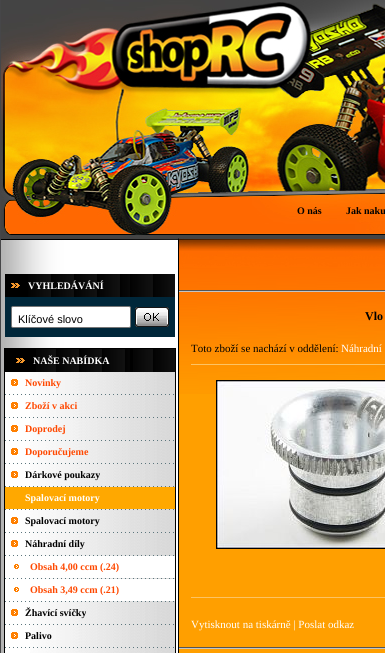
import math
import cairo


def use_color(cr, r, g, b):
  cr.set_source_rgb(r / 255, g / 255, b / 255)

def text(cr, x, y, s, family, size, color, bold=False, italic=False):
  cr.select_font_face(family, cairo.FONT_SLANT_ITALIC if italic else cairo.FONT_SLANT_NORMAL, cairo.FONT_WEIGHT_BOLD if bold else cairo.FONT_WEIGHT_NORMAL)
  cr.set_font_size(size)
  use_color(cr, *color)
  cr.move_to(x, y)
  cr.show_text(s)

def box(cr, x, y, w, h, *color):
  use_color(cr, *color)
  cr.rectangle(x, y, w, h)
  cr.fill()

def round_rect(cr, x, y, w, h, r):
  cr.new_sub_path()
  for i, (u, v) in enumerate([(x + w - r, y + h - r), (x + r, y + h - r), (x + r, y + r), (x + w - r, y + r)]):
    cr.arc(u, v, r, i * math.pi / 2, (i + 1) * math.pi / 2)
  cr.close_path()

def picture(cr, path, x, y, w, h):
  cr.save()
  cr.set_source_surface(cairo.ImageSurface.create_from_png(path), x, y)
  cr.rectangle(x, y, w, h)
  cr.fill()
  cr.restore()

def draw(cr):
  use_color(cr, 70, 70, 72)
  cr.paint()
  picture(cr, "img_01.png", 1, 0, 384, 238)
  picture(cr, "img_02.png", 1, 238, 384, 30)
  picture(cr, "img_03.png", 1, 268, 178, 385)
  picture(cr, "img_04.png", 5, 274, 23, 23)
  picture(cr, "img_05.png", 28, 274, 102, 23)
  picture(cr, "img_06.png", 130, 274, 45, 23)
  box(cr, 5, 297, 170, 40, 0, 39, 58)
  use_color(cr, 255, 255, 255)
  round_rect(cr, 11.5, 306.5, 119, 21, 1.5)
  cr.fill_preserve()
  use_color(cr, 118, 118, 118)
  cr.set_line_width(1)
  cr.stroke()
  picture(cr, "img_07.png", 135, 307, 34, 20)
  box(cr, 4, 348, 172, 305, 0, 0, 0)
  picture(cr, "img_08.png", 16, 358, 9, 5)
  picture(cr, "img_09.png", 36, 349, 94, 23)
  picture(cr, "img_10.png", 133, 349, 42, 23)
  box(cr, 5, 372, 25, 281, 255, 255, 255)
  picture(cr, "img_11.png", 30, 372, 145, 281)
  picture(cr, "img_12.png", 11, 379, 7, 7)
  picture(cr, "img_13.png", 5, 394, 169, 1)
  picture(cr, "img_12.png", 11, 402, 7, 7)
  picture(cr, "img_14.png", 5, 417, 169, 1)
  picture(cr, "img_12.png", 11, 425, 7, 7)
  picture(cr, "img_15.png", 5, 440, 169, 1)
  picture(cr, "img_12.png", 11, 448, 7, 7)
  picture(cr, "img_13.png", 5, 463, 169, 1)
  picture(cr, "img_12.png", 11, 471, 7, 7)
  picture(cr, "img_14.png", 5, 486, 169, 1)
  box(cr, 5, 487, 170, 22, 255, 168, 0)
  picture(cr, "img_15.png", 5, 509, 169, 1)
  picture(cr, "img_12.png", 11, 517, 7, 7)
  picture(cr, "img_13.png", 5, 532, 169, 1)
  picture(cr, "img_12.png", 11, 540, 7, 7)
  picture(cr, "img_14.png", 5, 555, 169, 1)
  picture(cr, "img_16.png", 14, 564, 5, 5)
  box(cr, 30, 556, 145, 22, 255, 255, 255)
  picture(cr, "img_15.png", 5, 578, 169, 1)
  picture(cr, "img_16.png", 14, 587, 5, 5)
  box(cr, 30, 579, 145, 22, 255, 255, 255)
  picture(cr, "img_13.png", 5, 601, 169, 1)
  picture(cr, "img_12.png", 11, 609, 7, 7)
  picture(cr, "img_14.png", 5, 624, 169, 1)
  picture(cr, "img_12.png", 11, 632, 7, 7)
  picture(cr, "img_15.png", 5, 647, 169, 1)
  box(cr, 179, 394, 206, 259, 255, 159, 0)
  picture(cr, "img_17.png", 179, 268, 206, 126)
  picture(cr, "img_18.png", 179, 290, 10, 2)
  picture(cr, "img_19.png", 189, 290, 196, 2)
  box(cr, 191, 364, 194, 1, 253, 195, 99)
  cr.rectangle(216.5, 380.5, 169, 168)
  use_color(cr, 0, 0, 0)
  cr.stroke()
  picture(cr, "img_20.png", 217, 381, 168, 167)
  box(cr, 191, 597, 194, 1, 253, 195, 99)
  picture(cr, "img_18.png", 179, 647, 10, 2)
  picture(cr, "img_19.png", 189, 647, 196, 2)
  text(cr, 297, 214, "O nás", "Liberation Serif", 10, (0, 0, 0), bold=True)
  text(cr, 346, 214, "Jak naku", "Liberation Serif", 10, (0, 0, 0), bold=True)
  text(cr, 28, 289, "VYHLEDÁVÁNÍ", "Liberation Serif", 10, (255, 255, 255), bold=True)
  text(cr, 18, 323, "Klíčové slovo", "Liberation Sans", 11, (0, 0, 0))
  text(cr, 33, 364, "NAŠE NABÍDKA", "Liberation Serif", 10, (255, 255, 255), bold=True)
  text(cr, 25, 386, "Novinky", "Liberation Serif", 10, (255, 72, 0), bold=True)
  text(cr, 25, 409, "Zboží v akci", "Liberation Serif", 10, (255, 72, 0), bold=True)
  text(cr, 25, 432, "Doprodej", "Liberation Serif", 10, (255, 72, 0), bold=True)
  text(cr, 25, 455, "Doporučujeme", "Liberation Serif", 10, (255, 72, 0), bold=True)
  text(cr, 25, 478, "Dárkové poukazy", "Liberation Serif", 10, (0, 0, 0), bold=True)
  text(cr, 25, 501, "Spalovací motory", "Liberation Serif", 10, (255, 255, 255), bold=True)
  text(cr, 25, 524, "Spalovací motory", "Liberation Serif", 10, (0, 0, 0), bold=True)
  text(cr, 25, 547, "Náhradní díly", "Liberation Serif", 10, (0, 0, 0), bold=True)
  text(cr, 30, 570, "Obsah 4,00 ccm (.24)", "Liberation Serif", 10, (255, 72, 0), bold=True)
  text(cr, 30, 593, "Obsah 3,49 ccm (.21)", "Liberation Serif", 10, (255, 72, 0), bold=True)
  text(cr, 25, 616, "Žhavící svíčky", "Liberation Serif", 10, (0, 0, 0), bold=True)
  text(cr, 25, 639, "Palivo", "Liberation Serif", 10, (0, 0, 0), bold=True)
  text(cr, 365, 320, "Vlo", "Liberation Serif", 12, (0, 0, 0), bold=True)
  text(cr, 191, 352, "Toto zboží se nachází v oddělení:", "Liberation Serif", 11, (0, 0, 0))
  text(cr, 341, 352, "Náhradní", "Liberation Serif", 11, (255, 255, 255))
  text(cr, 191, 628, "Vytisknout na tiskárně | Poslat odkaz", "Liberation Serif", 11, (255, 255, 255))


surface = cairo.ImageSurface(cairo.FORMAT_RGB24, 385, 653)
cr = cairo.Context(surface)
options = cairo.FontOptions()
options.set_hint_metrics(cairo.HINT_METRICS_OFF)
options.set_hint_style(cairo.HINT_STYLE_NONE)
cr.set_font_options(options)
cr.set_miter_limit(4)
draw(cr)
surface.write_to_png("out.png")
